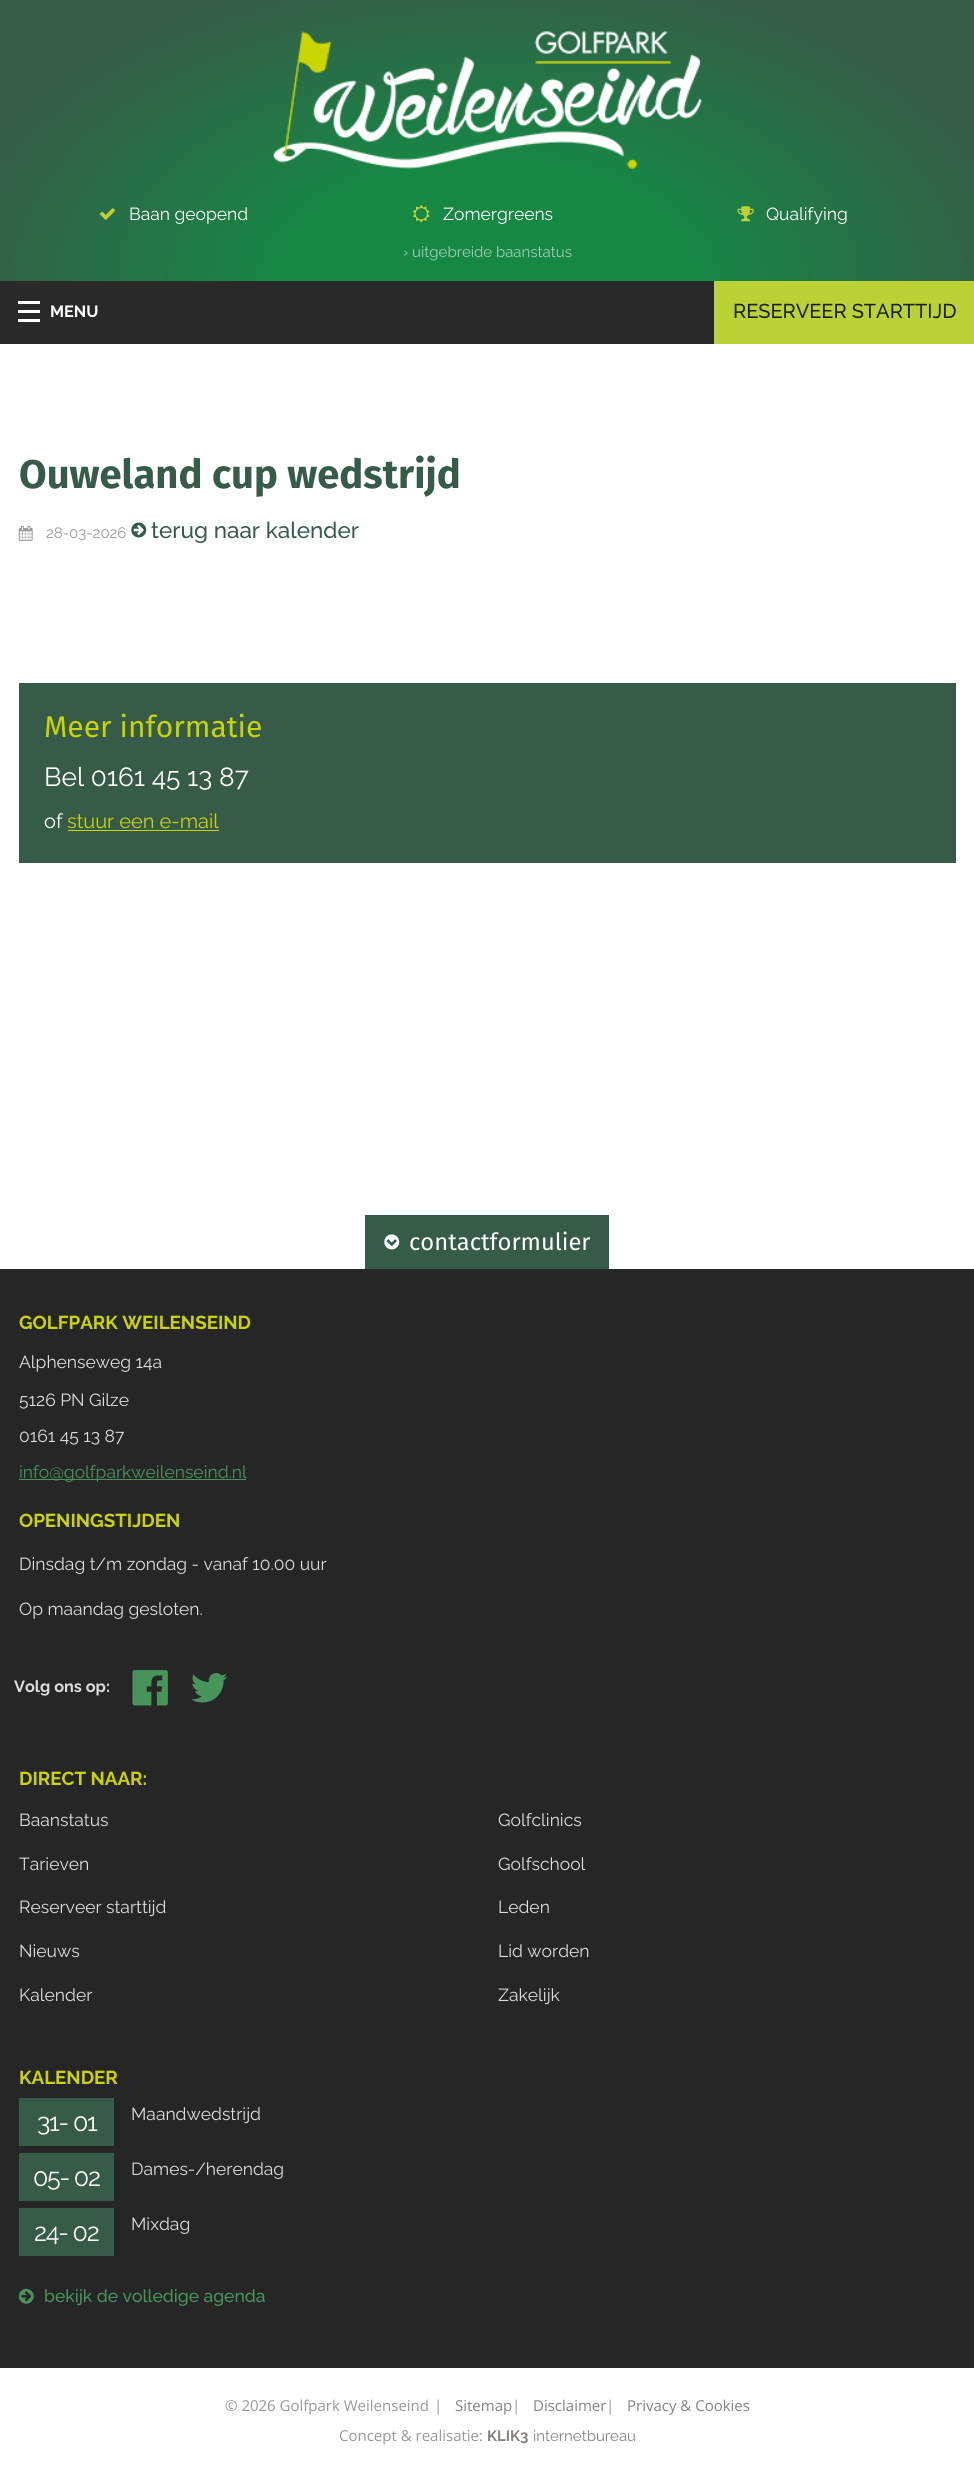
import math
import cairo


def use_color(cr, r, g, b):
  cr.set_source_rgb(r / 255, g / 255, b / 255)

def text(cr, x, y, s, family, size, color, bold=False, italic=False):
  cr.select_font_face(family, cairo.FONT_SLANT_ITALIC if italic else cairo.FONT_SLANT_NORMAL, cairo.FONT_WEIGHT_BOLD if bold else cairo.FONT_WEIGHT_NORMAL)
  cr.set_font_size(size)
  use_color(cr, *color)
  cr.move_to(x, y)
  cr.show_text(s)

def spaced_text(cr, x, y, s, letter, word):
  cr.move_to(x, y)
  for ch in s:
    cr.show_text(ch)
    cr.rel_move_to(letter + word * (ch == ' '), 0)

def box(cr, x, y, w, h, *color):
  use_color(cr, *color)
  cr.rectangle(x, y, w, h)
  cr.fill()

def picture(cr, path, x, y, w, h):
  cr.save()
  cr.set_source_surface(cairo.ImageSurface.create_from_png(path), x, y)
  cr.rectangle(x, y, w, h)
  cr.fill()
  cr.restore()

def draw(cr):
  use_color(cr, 255, 255, 255)
  cr.paint()
  gradient = cairo.RadialGradient(0, 0, 0, 0, 0, 1)
  gradient.set_matrix(cairo.Matrix(1 / 689, 0, 0, 1 / 398, -1 * 488 / 689, -1 * 281 / 398))
  gradient.add_color_stop_rgba(0.3, 0.09, 0.529, 0.267, 1)
  gradient.add_color_stop_rgba(0.8, 0.212, 0.357, 0.286, 1)
  cr.set_source(gradient)
  cr.rectangle(0, 0, 974, 281)
  cr.fill()
  picture(cr, "img_01.png", 273, 31, 429, 138)
  picture(cr, "img_02.png", 100, 208, 15, 12)
  picture(cr, "img_03.png", 413, 205, 17, 18)
  picture(cr, "img_04.png", 737, 206, 17, 16)
  box(cr, 0, 281, 714, 63, 41, 41, 41)
  box(cr, 18, 319, 22, 3, 255, 255, 255)
  box(cr, 18, 310, 22, 3, 255, 255, 255)
  box(cr, 18, 301, 22, 3, 255, 255, 255)
  box(cr, 714, 281, 260, 63, 187, 210, 54)
  picture(cr, "img_05.png", 18, 525, 15, 16)
  picture(cr, "img_06.png", 131, 522, 16, 16)
  box(cr, 19, 683, 937, 180, 54, 91, 73)
  box(cr, 68, 830, 151, 1, 202, 212, 1)
  box(cr, 365, 1215, 244, 54, 54, 91, 73)
  picture(cr, "img_07.png", 384, 1234, 16, 16)
  box(cr, 0, 1269, 974, 1099, 38, 38, 38)
  box(cr, 19, 1479, 227, 1, 72, 149, 92)
  picture(cr, "img_08.png", 132, 1670, 36, 36)
  picture(cr, "img_09.png", 191, 1673, 37, 30)
  box(cr, 19, 2098, 95, 48, 54, 91, 73)
  box(cr, 19, 2153, 95, 48, 54, 91, 73)
  box(cr, 19, 2208, 95, 48, 54, 91, 73)
  picture(cr, "img_10.png", 18, 2288, 16, 16)
  text(cr, 129, 220, "Baan geopend", "Raleway", 17.5, (255, 255, 255))
  text(cr, 443, 220, "Zomergreens", "Raleway", 17.5, (255, 255, 255))
  text(cr, 766, 220, "Qualifying", "Raleway", 17.5, (255, 255, 255))
  text(cr, 403, 257, "› uitgebreide baanstatus", "Raleway", 15, (162, 207, 180))
  text(cr, 50, 317, "MENU", "Raleway", 16.25, (255, 255, 255), bold=True)
  text(cr, 733, 318, "RESERVEER STARTTIJD", "Raleway Medium", 20, (26, 34, 30))
  text(cr, 19, 488, "Ouweland cup wedstrijd", "Fira Sans", 40, (54, 91, 73), bold=True)
  text(cr, 46, 538, "28-03-2026", "Raleway", 15, (153, 153, 153))
  text(cr, 151, 538, "terug naar kalender", "Raleway Medium", 22.5, (54, 91, 73))
  text(cr, 44, 737, "Meer informatie", "Fira Sans", 30, (202, 212, 1))
  text(cr, 44, 786, "Bel 0161 45 13 87", "Raleway", 26.25, (255, 255, 255))
  text(cr, 44, 828, "of", "Raleway", 20, (255, 255, 255))
  text(cr, 67, 828, "stuur een e-mail", "Raleway", 20, (202, 212, 1))
  text(cr, 409, 1250, "contactformulier", "Fira Sans", 23.75, (255, 255, 255))
  text(cr, 19, 1329, "GOLFPARK WEILENSEIND", "Raleway", 18.75, (202, 212, 1), bold=True)
  text(cr, 19, 1368, "Alphenseweg 14a", "Raleway", 17.5, (221, 221, 221))
  text(cr, 19, 1406, "5126 PN Gilze", "Raleway", 17.5, (221, 221, 221))
  text(cr, 19, 1442, "0161 45 13 87", "Raleway", 17.5, (221, 221, 221))
  text(cr, 19, 1478, "info@golfparkweilenseind.nl", "Raleway", 17.5, (72, 149, 92))
  text(cr, 19, 1527, "OPENINGSTIJDEN", "Raleway", 18.75, (202, 212, 1), bold=True)
  text(cr, 19, 1570, "Dinsdag t/m zondag - vanaf 10.00 uur", "Raleway", 17.5, (221, 221, 221))
  text(cr, 19, 1615, "Op maandag gesloten.", "Raleway", 17.5, (221, 221, 221))
  text(cr, 14, 1692, "Volg ons op:", "Raleway", 16.25, (221, 221, 221), bold=True)
  text(cr, 19, 1785, "DIRECT NAAR:", "Raleway", 18.75, (202, 212, 1), bold=True)
  text(cr, 19, 1826, "Baanstatus", "Raleway", 17.5, (221, 221, 221))
  text(cr, 498, 1826, "Golfclinics", "Raleway", 17.5, (221, 221, 221))
  text(cr, 19, 1870, "Tarieven", "Raleway", 17.5, (221, 221, 221))
  text(cr, 498, 1870, "Golfschool", "Raleway", 17.5, (221, 221, 221))
  text(cr, 19, 1913, "Reserveer starttijd", "Raleway", 17.5, (221, 221, 221))
  text(cr, 498, 1913, "Leden", "Raleway", 17.5, (221, 221, 221))
  text(cr, 19, 1957, "Nieuws", "Raleway", 17.5, (221, 221, 221))
  text(cr, 498, 1957, "Lid worden", "Raleway", 17.5, (221, 221, 221))
  text(cr, 19, 2001, "Kalender", "Raleway", 17.5, (221, 221, 221))
  text(cr, 498, 2001, "Zakelijk", "Raleway", 17.5, (221, 221, 221))
  text(cr, 19, 2084, "KALENDER", "Raleway", 18.75, (202, 212, 1), bold=True)
  cr.select_font_face("Raleway")
  cr.set_font_size(25)
  use_color(cr, 255, 255, 255)
  spaced_text(cr, 37, 2131, "31- 01", -1.25, 0)
  text(cr, 131, 2120, "Maandwedstrijd", "Raleway", 17.5, (221, 221, 221))
  cr.set_font_size(25)
  use_color(cr, 255, 255, 255)
  spaced_text(cr, 33, 2186, "05- 02", -1.25, 0)
  text(cr, 131, 2175, "Dames-/herendag", "Raleway", 17.5, (221, 221, 221))
  cr.set_font_size(25)
  use_color(cr, 255, 255, 255)
  spaced_text(cr, 34, 2241, "24- 02", -1.25, 0)
  text(cr, 131, 2230, "Mixdag", "Raleway", 17.5, (221, 221, 221))
  text(cr, 44, 2302, "bekijk de volledige agenda", "Raleway Medium", 17.5, (72, 149, 92))
  text(cr, 225, 2411, "© 2026 Golfpark Weilenseind", "Open Sans", 15, (153, 153, 153))
  text(cr, 434, 2411, "|", "Open Sans", 15, (153, 153, 153))
  text(cr, 455, 2411, "Sitemap", "Open Sans", 15, (134, 131, 129))
  text(cr, 512, 2411, "|", "Open Sans", 15, (153, 153, 153))
  text(cr, 533, 2411, "Disclaimer", "Open Sans", 15, (134, 131, 129))
  text(cr, 606, 2411, "|", "Open Sans", 15, (153, 153, 153))
  text(cr, 627, 2411, "Privacy & Cookies", "Open Sans", 15, (134, 131, 129))
  text(cr, 339, 2441, "Concept & realisatie:", "Open Sans", 15, (153, 153, 153))
  text(cr, 487, 2441, "KLIK3", "Raleway", 15, (134, 131, 129), bold=True)
  text(cr, 533, 2441, "internetbureau", "Raleway", 15, (134, 131, 129))


surface = cairo.ImageSurface(cairo.FORMAT_RGB24, 974, 2467)
cr = cairo.Context(surface)
options = cairo.FontOptions()
options.set_hint_metrics(cairo.HINT_METRICS_OFF)
options.set_hint_style(cairo.HINT_STYLE_NONE)
cr.set_font_options(options)
cr.set_miter_limit(4)
draw(cr)
surface.write_to_png("out.png")
